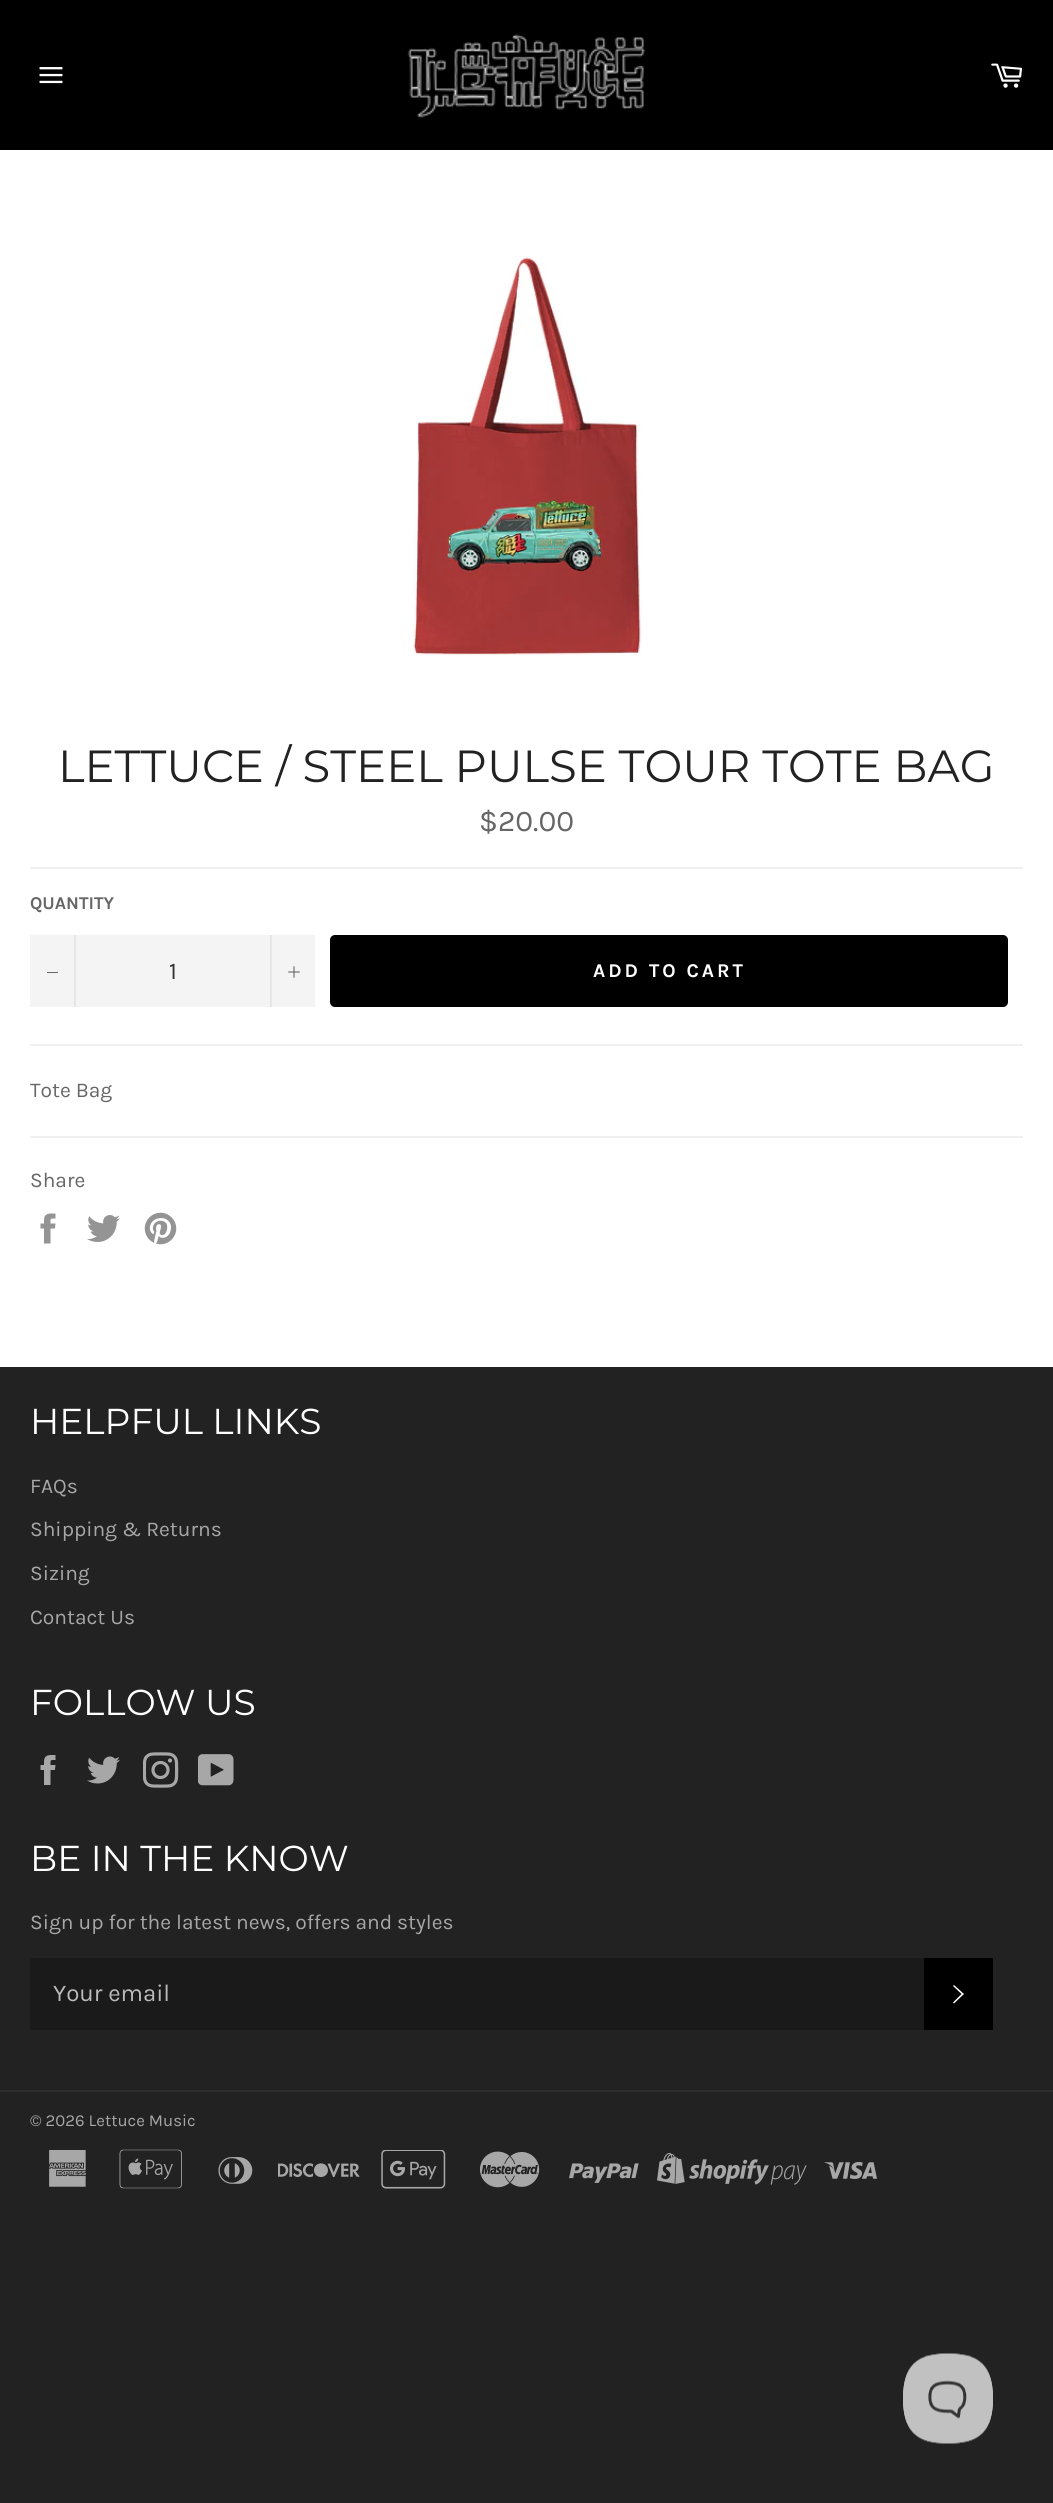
import math
import cairo


def use_color(cr, r, g, b):
  cr.set_source_rgb(r / 255, g / 255, b / 255)

def text(cr, x, y, s, family, size, color, bold=False, italic=False):
  cr.select_font_face(family, cairo.FONT_SLANT_ITALIC if italic else cairo.FONT_SLANT_NORMAL, cairo.FONT_WEIGHT_BOLD if bold else cairo.FONT_WEIGHT_NORMAL)
  cr.set_font_size(size)
  use_color(cr, *color)
  cr.move_to(x, y)
  cr.show_text(s)

def spaced_text(cr, x, y, s, letter, word):
  cr.move_to(x, y)
  for ch in s:
    cr.show_text(ch)
    cr.rel_move_to(letter + word * (ch == ' '), 0)

def box(cr, x, y, w, h, *color):
  use_color(cr, *color)
  cr.rectangle(x, y, w, h)
  cr.fill()

def round_rect(cr, x, y, w, h, r):
  cr.new_sub_path()
  for i, (u, v) in enumerate([(x + w - r, y + h - r), (x + r, y + h - r), (x + r, y + r), (x + w - r, y + r)]):
    cr.arc(u, v, r, i * math.pi / 2, (i + 1) * math.pi / 2)
  cr.close_path()

def picture(cr, path, x, y, w, h):
  cr.save()
  cr.set_source_surface(cairo.ImageSurface.create_from_png(path), x, y)
  cr.rectangle(x, y, w, h)
  cr.fill()
  cr.restore()

def draw(cr):
  use_color(cr, 34, 34, 34)
  cr.paint()
  box(cr, 0, 0, 1053, 150, 0, 0, 0)
  picture(cr, "img_01.png", 39, 67, 24, 17)
  picture(cr, "img_02.png", 407, 34, 239, 84)
  picture(cr, "img_03.png", 991, 63, 31, 25)
  box(cr, 0, 150, 1053, 1217, 255, 255, 255)
  picture(cr, "img_04.png", 412, 256, 231, 399)
  box(cr, 30, 867, 993, 2, 240, 240, 240)
  box(cr, 30, 935, 285, 72, 244, 244, 244)
  box(cr, 74, 935, 2, 72, 231, 231, 231)
  box(cr, 47, 972, 11, 1, 102, 102, 102)
  box(cr, 270, 935, 2, 72, 231, 231, 231)
  picture(cr, "img_05.png", 288, 966, 12, 12)
  use_color(cr, 0, 0, 0)
  round_rect(cr, 330, 935, 678, 72, 5)
  cr.fill()
  box(cr, 30, 1044, 993, 2, 240, 240, 240)
  box(cr, 30, 1136, 993, 2, 240, 240, 240)
  picture(cr, "img_06.png", 40, 1213, 16, 31)
  picture(cr, "img_07.png", 87, 1215, 33, 27)
  picture(cr, "img_08.png", 144, 1212, 33, 33)
  picture(cr, "img_09.png", 40, 1755, 16, 30)
  picture(cr, "img_10.png", 87, 1756, 33, 28)
  picture(cr, "img_11.png", 143, 1752, 36, 36)
  picture(cr, "img_12.png", 198, 1754, 36, 32)
  box(cr, 30, 1958, 894, 72, 26, 26, 26)
  box(cr, 924, 1958, 69, 72, 0, 0, 0)
  use_color(cr, 255, 255, 255)
  cr.new_path()
  cr.move_to(953, 1986)
  cr.line_to(954, 1985)
  cr.line_to(964, 1994)
  cr.line_to(954, 2003.5)
  cr.line_to(953, 2002.5)
  cr.line_to(961.5, 1994)
  cr.close_path()
  cr.fill()
  box(cr, 0, 2090, 1053, 2, 47, 47, 47)
  picture(cr, "img_13.png", 49, 2150, 37, 37)
  picture(cr, "img_14.png", 119, 2149, 63, 40)
  picture(cr, "img_15.png", 218, 2157, 35, 27)
  picture(cr, "img_16.png", 278, 2163, 82, 15)
  picture(cr, "img_17.png", 381, 2150, 65, 39)
  picture(cr, "img_18.png", 480, 2151, 60, 37)
  picture(cr, "img_19.png", 569, 2163, 70, 20)
  picture(cr, "img_20.png", 657, 2152, 150, 33)
  picture(cr, "img_21.png", 824, 2161, 53, 18)
  picture(cr, "img_22.png", 903, 2353, 90, 91)
  text(cr, 58, 782, "LETTUCE / STEEL PULSE TOUR TOTE BAG", "Montserrat", 45, (34, 34, 34))
  text(cr, 479, 831, "$20.00", "Karla", 30, (102, 102, 102))
  text(cr, 30, 909, "QUANTITY", "Karla", 18, (102, 102, 102), bold=True)
  text(cr, 169, 979, "1", "Karla", 24, (51, 51, 51))
  cr.select_font_face("Karla", cairo.FONT_SLANT_NORMAL, cairo.FONT_WEIGHT_BOLD)
  cr.set_font_size(19.5)
  use_color(cr, 255, 255, 255)
  spaced_text(cr, 593, 977, "ADD TO CART", 3, 0)
  text(cr, 30, 1097, "Tote Bag", "Karla", 21, (102, 102, 102))
  text(cr, 30, 1187, "Share", "Karla", 21, (102, 102, 102))
  text(cr, 30, 1434, "HELPFUL LINKS", "Montserrat", 36, (255, 255, 255))
  text(cr, 30, 1493, "FAQs", "Karla", 21, (167, 167, 167))
  text(cr, 30, 1536, "Shipping & Returns", "Karla", 21, (167, 167, 167))
  text(cr, 30, 1580, "Sizing", "Karla", 21, (167, 167, 167))
  text(cr, 30, 1624, "Contact Us", "Karla", 21, (167, 167, 167))
  text(cr, 30, 1715, "FOLLOW US", "Montserrat", 36, (255, 255, 255))
  text(cr, 30, 1871, "BE IN THE KNOW", "Montserrat", 36, (255, 255, 255))
  text(cr, 30, 1929, "Sign up for the latest news, offers and styles", "Karla", 21, (167, 167, 167))
  text(cr, 53, 2001, "Your email", "Karla", 24, (186, 186, 186))
  text(cr, 30, 2126, "© 2026 Lettuce Music", "Karla", 16.75, (167, 167, 167))


surface = cairo.ImageSurface(cairo.FORMAT_RGB24, 1053, 2503)
cr = cairo.Context(surface)
options = cairo.FontOptions()
options.set_hint_metrics(cairo.HINT_METRICS_OFF)
options.set_hint_style(cairo.HINT_STYLE_NONE)
cr.set_font_options(options)
cr.set_miter_limit(4)
draw(cr)
surface.write_to_png("out.png")
